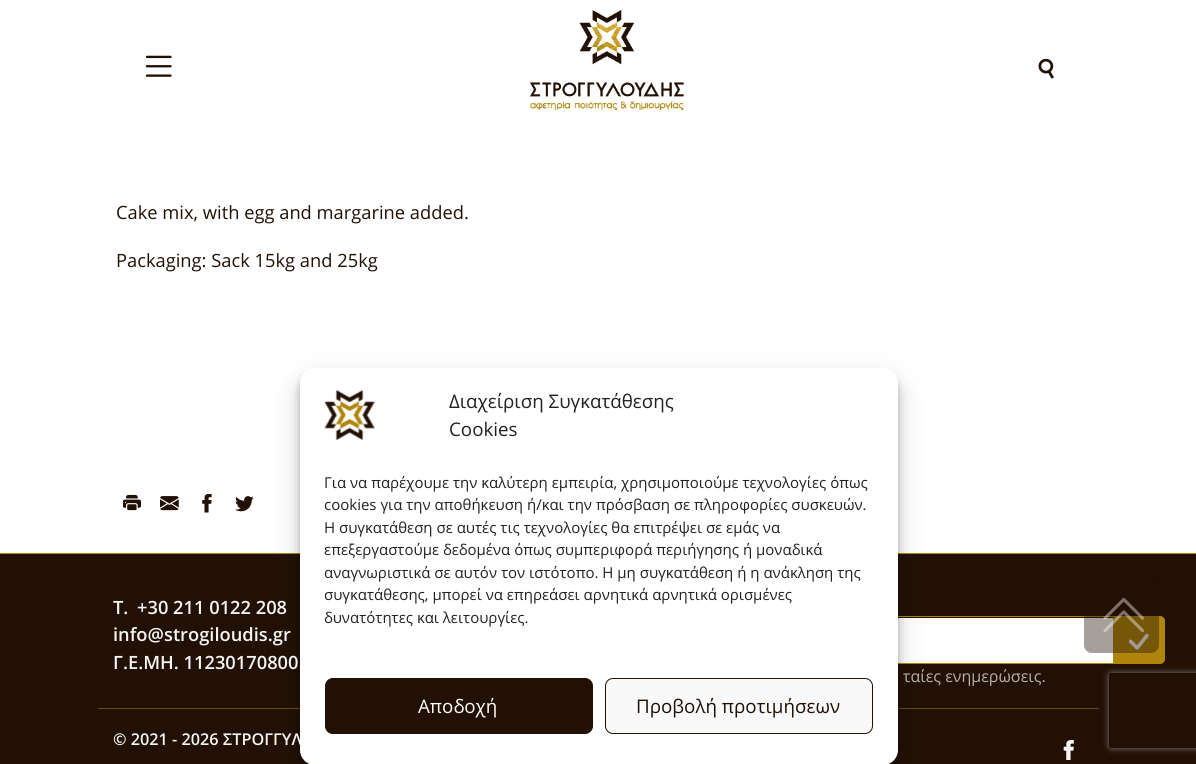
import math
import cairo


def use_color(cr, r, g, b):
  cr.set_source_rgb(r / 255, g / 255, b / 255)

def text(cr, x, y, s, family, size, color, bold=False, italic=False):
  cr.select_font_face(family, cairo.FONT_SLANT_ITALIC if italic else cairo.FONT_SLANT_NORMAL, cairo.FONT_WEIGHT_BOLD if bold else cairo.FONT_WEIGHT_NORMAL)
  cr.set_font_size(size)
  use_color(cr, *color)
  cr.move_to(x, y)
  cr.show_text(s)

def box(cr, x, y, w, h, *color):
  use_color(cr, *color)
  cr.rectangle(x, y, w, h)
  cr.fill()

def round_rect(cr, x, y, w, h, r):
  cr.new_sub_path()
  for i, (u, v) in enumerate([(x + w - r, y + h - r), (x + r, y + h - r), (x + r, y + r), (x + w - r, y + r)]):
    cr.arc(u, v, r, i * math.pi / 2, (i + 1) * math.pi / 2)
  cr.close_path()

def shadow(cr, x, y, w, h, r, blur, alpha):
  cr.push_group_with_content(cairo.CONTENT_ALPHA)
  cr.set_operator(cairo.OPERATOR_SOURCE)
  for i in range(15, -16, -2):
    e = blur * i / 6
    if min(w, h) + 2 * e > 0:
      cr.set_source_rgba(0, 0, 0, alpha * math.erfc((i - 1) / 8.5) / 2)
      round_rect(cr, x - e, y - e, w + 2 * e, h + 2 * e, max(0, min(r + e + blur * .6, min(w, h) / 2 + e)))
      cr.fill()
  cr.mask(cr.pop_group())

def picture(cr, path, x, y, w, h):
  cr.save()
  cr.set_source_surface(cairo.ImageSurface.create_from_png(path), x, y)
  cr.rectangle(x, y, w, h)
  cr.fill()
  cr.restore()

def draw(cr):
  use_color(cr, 255, 255, 255)
  cr.paint()
  picture(cr, "img_01.png", 145, 55, 27, 22)
  picture(cr, "img_02.png", 530, 10, 154, 100)
  picture(cr, "img_03.png", 1038, 59, 16, 20)
  picture(cr, "img_04.png", 123, 494, 18, 17)
  picture(cr, "img_05.png", 160, 496, 19, 15)
  picture(cr, "img_06.png", 202, 494, 10, 19)
  picture(cr, "img_07.png", 235, 496, 19, 16)
  box(cr, 0, 554, 1196, 210, 34, 16, 4)
  box(cr, 0, 553, 1196, 1, 175, 133, 12)
  box(cr, 898, 618, 215, 45, 255, 255, 255)
  cr.rectangle(780.5, 616.5, 333, 47)
  use_color(cr, 175, 133, 12)
  cr.set_line_width(1)
  cr.stroke()
  box(cr, 98, 708, 1001, 1, 105, 75, 8)
  use_color(cr, 0, 0, 0)
  shadow(cr, 300, 375, 598, 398, 15, 4, 0.23)
  shadow(cr, 300, 380, 598, 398, 15, 12.5, 0.19)
  cr.save()
  cr.set_fill_rule(cairo.FILL_RULE_EVEN_ODD)
  cr.new_path()
  cr.move_to(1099, 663)
  cr.line_to(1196, 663)
  cr.line_to(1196, 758)
  cr.line_to(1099, 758)
  cr.close_path()
  cr.move_to(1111.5, 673)
  cr.line_to(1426.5, 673)
  cr.curve_to(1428, 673, 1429, 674, 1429, 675.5)
  cr.line_to(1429, 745.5)
  cr.curve_to(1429, 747, 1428, 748, 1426.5, 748)
  cr.line_to(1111.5, 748)
  cr.curve_to(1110, 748, 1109, 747, 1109, 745.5)
  cr.line_to(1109, 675.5)
  cr.curve_to(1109, 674, 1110, 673, 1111.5, 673)
  cr.close_path()
  cr.clip()
  use_color(cr, 128, 128, 128)
  shadow(cr, 1109, 673, 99, 75, 2.5, 3, 1)
  cr.restore()
  use_color(cr, 175, 133, 12)
  cr.new_path()
  cr.move_to(1113.5, 616.5)
  cr.line_to(1160, 616.5)
  cr.curve_to(1162.5, 616.5, 1164.5, 618.5, 1164.5, 621)
  cr.line_to(1164.5, 659)
  cr.curve_to(1164.5, 661.5, 1162.5, 663.5, 1160, 663.5)
  cr.line_to(1113.5, 663.5)
  cr.close_path()
  cr.fill_preserve()
  cr.stroke()
  picture(cr, "img_09.png", 1129, 633, 20, 17)
  picture(cr, "img_10.png", 1063, 740, 11, 20)
  cr.set_source_rgba(0.133, 0.063, 0.016, 0.4)
  round_rect(cr, 1084, 578, 75, 75, 8)
  cr.fill()
  picture(cr, "img_11.png", 1103, 597, 41, 36)
  text(cr, 116, 219, "Cake mix, with egg and margarine added.", "Open Sans", 18.3, (34, 16, 4))
  text(cr, 116, 267, "Packaging: Sack 15kg and 25kg", "Open Sans", 18.3, (34, 16, 4))
  text(cr, 113, 614, "T.", "Open Sans SemiBold", 18.3, (245, 245, 245))
  text(cr, 137, 614, "+30 211 0122 208", "Open Sans SemiBold", 18.3, (245, 245, 245))
  text(cr, 113, 641, "info@strogiloudis.gr", "Open Sans SemiBold", 18.3, (245, 245, 245))
  text(cr, 113, 669, "Γ.Ε.ΜΗ. 11230170800", "Open Sans SemiBold", 18.3, (245, 245, 245))
  text(cr, 903, 682, "ταίες ενημερώσεις.", "Open Sans", 16, (182, 176, 173))
  text(cr, 113, 745, "© 2021 - 2026 ΣΤΡΟΓΓΥΛ", "Open Sans SemiBold", 16.25, (245, 245, 245))
  use_color(cr, 255, 255, 255)
  round_rect(cr, 300, 368, 598, 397, 15)
  cr.fill()
  text(cr, 324, 623, "δυνατότητες και λειτουργίες.", "Open Sans", 15, (34, 34, 34))
  text(cr, 324, 600, "συγκατάθεσης, μπορεί να επηρεάσει αρνητικά αρνητικά ορισμένες", "Open Sans", 15, (34, 34, 34))
  text(cr, 324, 578, "αναγνωριστικά σε αυτόν τον ιστότοπο. Η μη συγκατάθεση ή η ανάκληση της", "Open Sans", 15, (34, 34, 34))
  text(cr, 324, 555, "επεξεργαστούμε δεδομένα όπως συμπεριφορά περιήγησης ή μοναδικά", "Open Sans", 15, (34, 34, 34))
  text(cr, 324, 533, "Η συγκατάθεση σε αυτές τις τεχνολογίες θα επιτρέψει σε εμάς να", "Open Sans", 15, (34, 34, 34))
  text(cr, 324, 510, "cookies για την αποθήκευση ή/και την πρόσβαση σε πληροφορίες συσκευών.", "Open Sans", 15, (34, 34, 34))
  text(cr, 324, 488, "Για να παρέχουμε την καλύτερη εμπειρία, χρησιμοποιούμε τεχνολογίες όπως", "Open Sans", 15, (34, 34, 34))
  use_color(cr, 249, 249, 249)
  round_rect(cr, 605.5, 678.5, 267, 55, 7.5)
  cr.fill_preserve()
  use_color(cr, 34, 16, 4)
  cr.stroke()
  text(cr, 636, 713, "Προβολή προτιμήσεων", "Open Sans", 18.75, (34, 16, 4))
  round_rect(cr, 325.5, 678.5, 267, 55, 7.5)
  cr.fill_preserve()
  cr.stroke()
  text(cr, 418, 713, "Αποδοχή", "Open Sans", 18.75, (255, 255, 255))
  text(cr, 449, 436, "Cookies", "Open Sans", 18.75, (34, 34, 34))
  text(cr, 449, 408, "Διαχείριση Συγκατάθεσης", "Open Sans", 18.75, (34, 34, 34))
  picture(cr, "img_08.png", 324, 389, 51, 52)


surface = cairo.ImageSurface(cairo.FORMAT_RGB24, 1196, 764)
cr = cairo.Context(surface)
options = cairo.FontOptions()
options.set_hint_metrics(cairo.HINT_METRICS_OFF)
options.set_hint_style(cairo.HINT_STYLE_NONE)
cr.set_font_options(options)
cr.set_miter_limit(4)
draw(cr)
surface.write_to_png("out.png")
